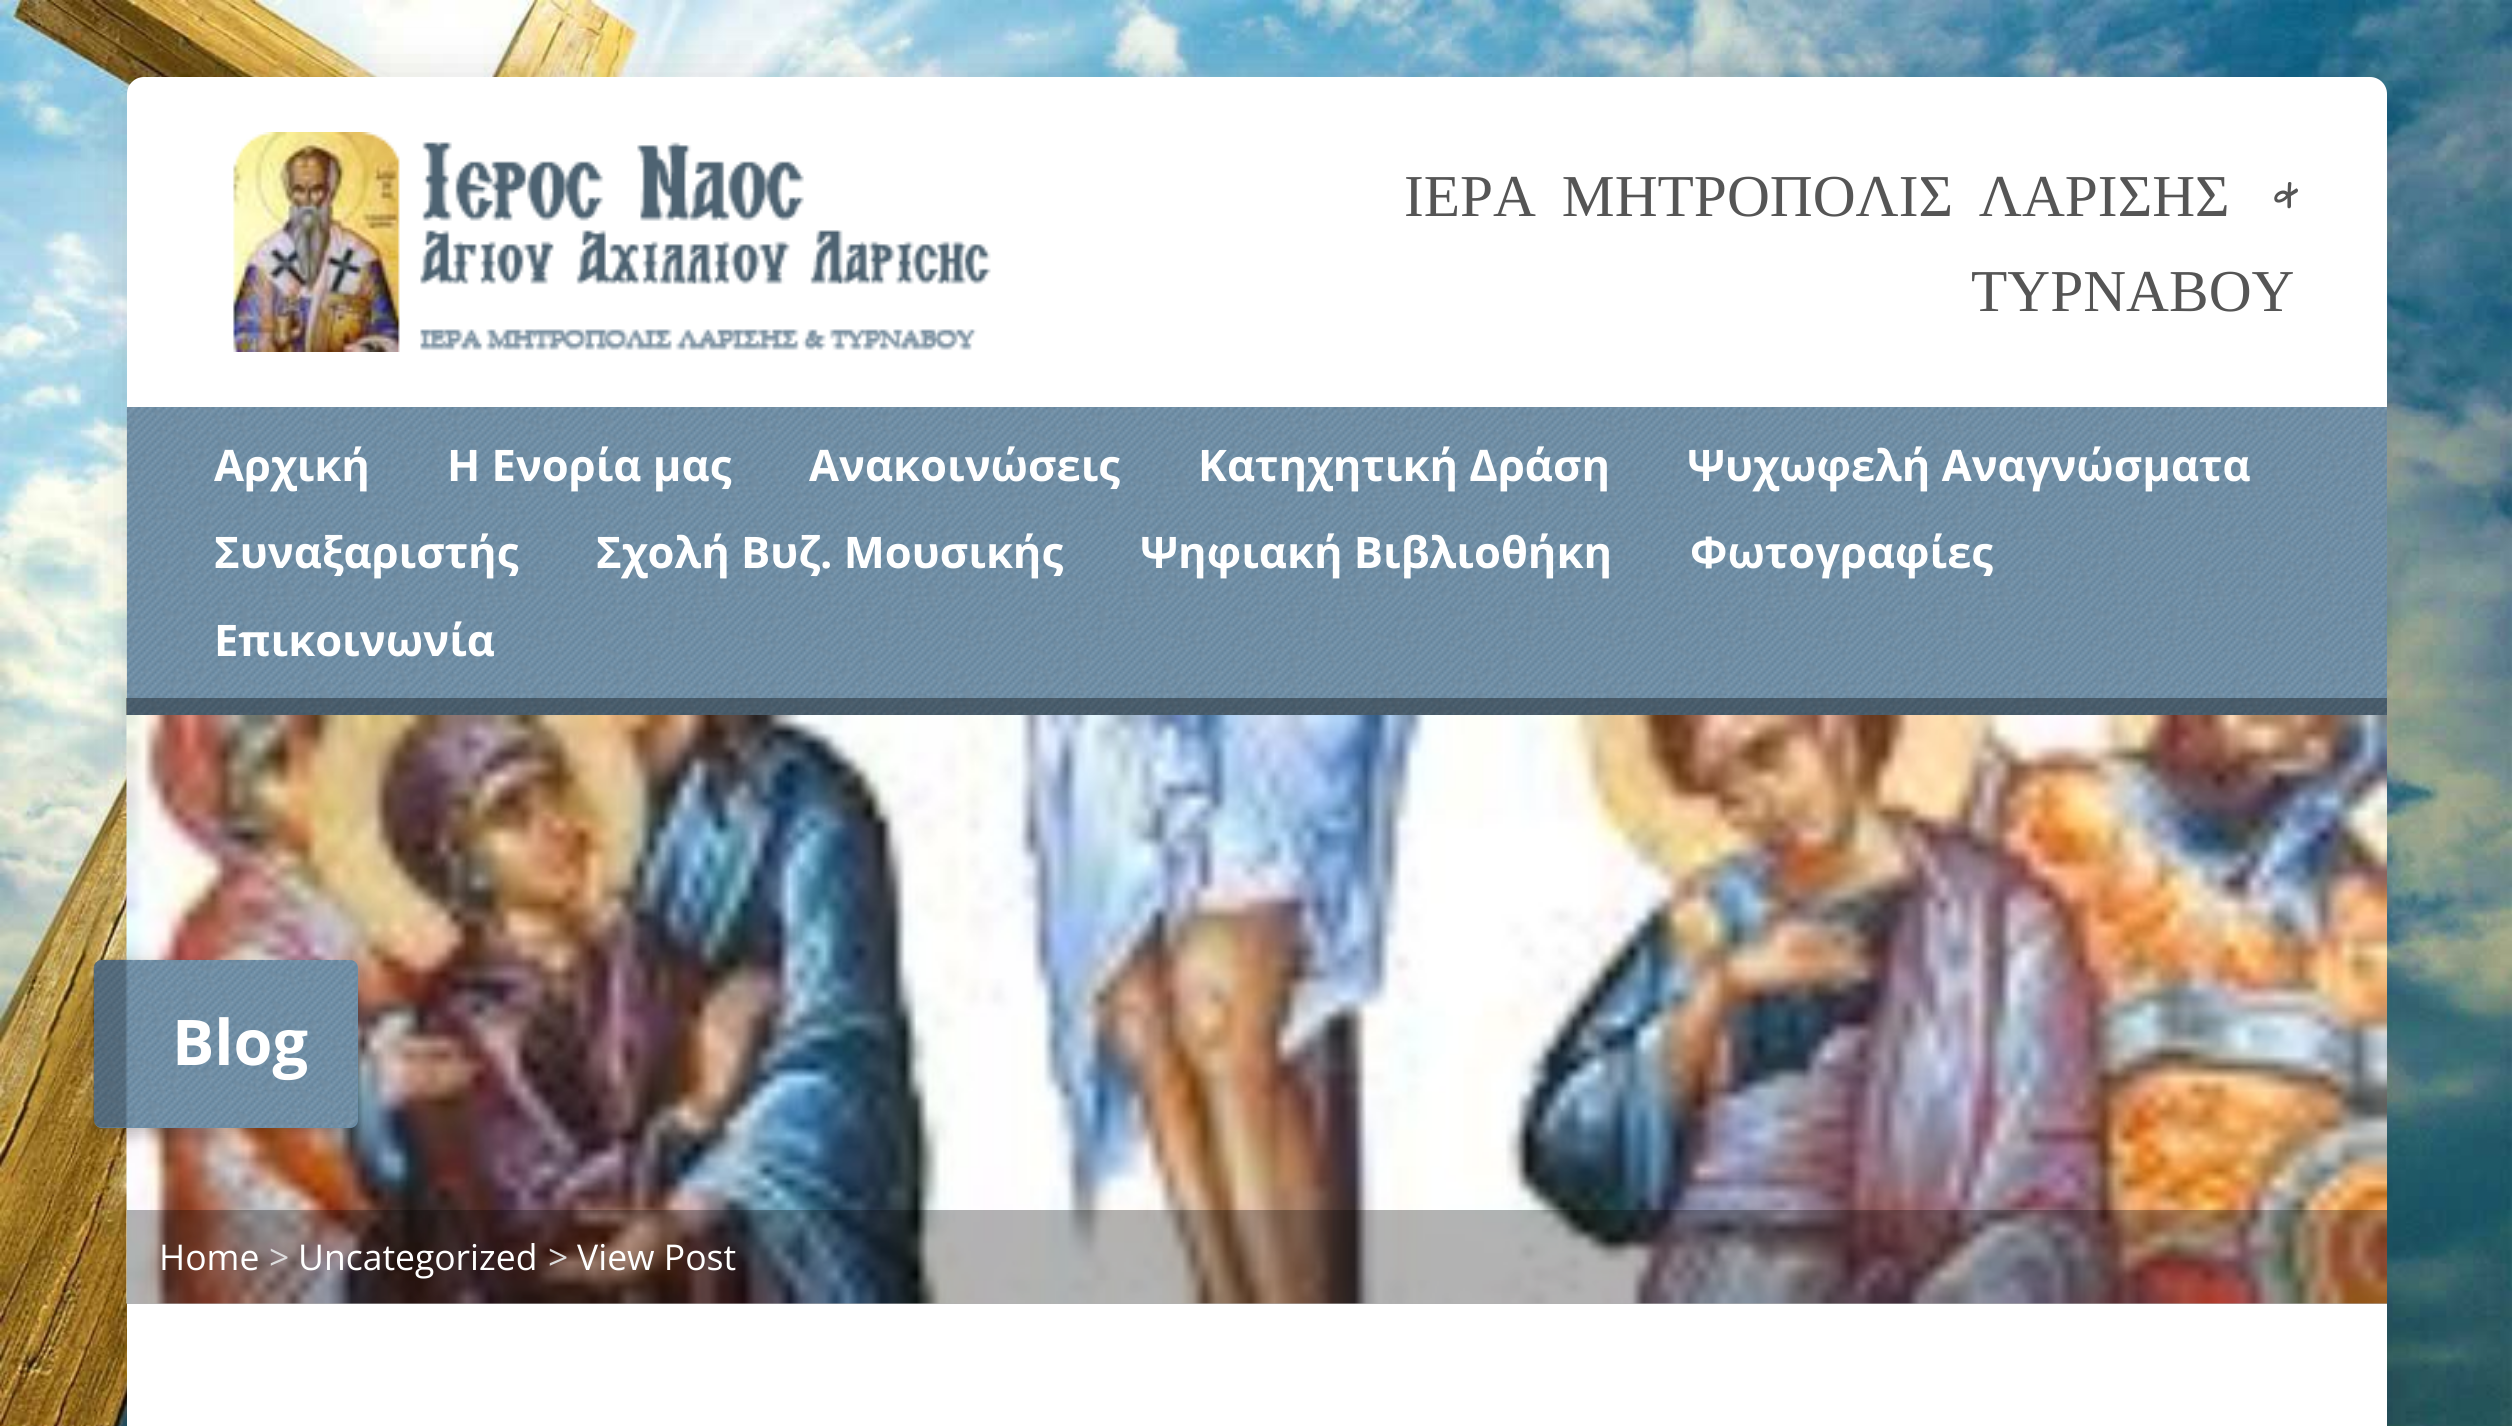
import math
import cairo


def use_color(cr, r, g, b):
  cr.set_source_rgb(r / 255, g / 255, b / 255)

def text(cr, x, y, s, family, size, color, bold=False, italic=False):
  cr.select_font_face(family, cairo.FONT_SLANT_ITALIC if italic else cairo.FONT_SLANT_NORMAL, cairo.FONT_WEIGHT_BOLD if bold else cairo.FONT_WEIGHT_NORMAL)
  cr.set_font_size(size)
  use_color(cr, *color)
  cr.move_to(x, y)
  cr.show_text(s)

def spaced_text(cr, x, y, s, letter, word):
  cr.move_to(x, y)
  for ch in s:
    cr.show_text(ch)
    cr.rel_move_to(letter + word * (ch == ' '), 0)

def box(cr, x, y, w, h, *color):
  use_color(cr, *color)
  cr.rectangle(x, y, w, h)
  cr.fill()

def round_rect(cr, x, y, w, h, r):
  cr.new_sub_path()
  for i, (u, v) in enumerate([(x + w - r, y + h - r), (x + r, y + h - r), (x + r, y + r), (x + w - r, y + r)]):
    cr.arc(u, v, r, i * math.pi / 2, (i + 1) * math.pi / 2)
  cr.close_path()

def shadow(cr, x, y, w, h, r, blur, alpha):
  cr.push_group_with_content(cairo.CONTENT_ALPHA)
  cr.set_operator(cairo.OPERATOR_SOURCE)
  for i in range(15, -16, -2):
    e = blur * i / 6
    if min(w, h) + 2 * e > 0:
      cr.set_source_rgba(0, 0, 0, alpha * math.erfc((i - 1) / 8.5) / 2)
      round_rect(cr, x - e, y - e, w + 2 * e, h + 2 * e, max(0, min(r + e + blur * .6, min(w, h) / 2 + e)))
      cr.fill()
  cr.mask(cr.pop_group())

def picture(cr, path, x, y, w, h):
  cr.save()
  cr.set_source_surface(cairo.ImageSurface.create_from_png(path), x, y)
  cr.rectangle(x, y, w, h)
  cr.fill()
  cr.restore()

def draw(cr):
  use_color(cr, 255, 255, 255)
  cr.paint()
  picture(cr, "img_01.png", 0, 0, 2512, 1426)
  use_color(cr, 0, 0, 0)
  shadow(cr, 127, 77, 2260, 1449, 17, 27.5, 0.12)
  use_color(cr, 255, 255, 255)
  round_rect(cr, 127, 77, 2260, 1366, 17)
  cr.fill()
  picture(cr, "img_02.png", 233, 132, 758, 220)
  box(cr, 127, 407, 2260, 308, 106, 143, 171)
  picture(cr, "img_03.png", 126, 407, 2261, 308)
  cr.set_source_rgba(0, 0, 0, 0.35)
  cr.rectangle(126, 698, 2261, 17)
  cr.fill()
  picture(cr, "img_04.png", 126, 715, 2261, 589)
  use_color(cr, 0, 0, 0)
  shadow(cr, 94, 965, 264, 168, 8, 7, 0.24)
  use_color(cr, 106, 143, 171)
  round_rect(cr, 94, 960, 264, 168, 8)
  cr.fill()
  picture(cr, "img_05.png", 93, 959, 265, 169)
  cr.set_source_rgba(0, 0, 0, 0.3)
  cr.rectangle(127, 1210, 2260, 94)
  cr.fill()
  cr.select_font_face("Liberation Serif")
  cr.set_font_size(59.4)
  use_color(cr, 85, 85, 85)
  spaced_text(cr, 1404, 216, "ΙΕΡΑ ΜΗΤΡΟΠΟΛΙΣ ΛΑΡΙΣΗΣ", 0, 11)
  text(cr, 2271, 216, "&", "Shadows Into Light Two Light", 59.4, (85, 85, 85))
  text(cr, 1971, 311, "ΤΥΡΝΑΒΟΥ", "Liberation Serif", 59.4, (85, 85, 85))
  text(cr, 214, 481, "Αρχική", "Open Sans", 43.5, (255, 255, 255), bold=True)
  text(cr, 447, 481, "Η Ενορία μας", "Open Sans", 43.5, (255, 255, 255), bold=True)
  text(cr, 809, 481, "Ανακοινώσεις", "Open Sans", 43.5, (255, 255, 255), bold=True)
  text(cr, 1198, 481, "Κατηχητική Δράση", "Open Sans", 43.5, (255, 255, 255), bold=True)
  text(cr, 1687, 481, "Ψυχωφελή Αναγνώσματα", "Open Sans", 43.5, (255, 255, 255), bold=True)
  text(cr, 214, 568, "Συναξαριστής", "Open Sans", 43.5, (255, 255, 255), bold=True)
  text(cr, 596, 568, "Σχολή Βυζ. Μουσικής", "Open Sans", 43.5, (255, 255, 255), bold=True)
  text(cr, 1140, 568, "Ψηφιακή Βιβλιοθήκη", "Open Sans", 43.5, (255, 255, 255), bold=True)
  text(cr, 1690, 568, "Φωτογραφίες", "Open Sans", 43.5, (255, 255, 255), bold=True)
  text(cr, 214, 656, "Επικοινωνία", "Open Sans", 43.5, (255, 255, 255), bold=True)
  text(cr, 172, 1065, "Blog", "Open Sans", 63, (255, 255, 255), bold=True)
  text(cr, 159, 1270, "Home", "Open Sans", 35.5, (255, 255, 255))
  text(cr, 269, 1270, ">", "Open Sans", 35.5, (221, 221, 221))
  text(cr, 298, 1270, "Uncategorized", "Open Sans", 35.5, (255, 255, 255))
  text(cr, 548, 1270, ">", "Open Sans", 35.5, (221, 221, 221))
  text(cr, 577, 1270, "View Post", "Open Sans", 35.5, (255, 255, 255))


surface = cairo.ImageSurface(cairo.FORMAT_RGB24, 2512, 1426)
cr = cairo.Context(surface)
options = cairo.FontOptions()
options.set_hint_metrics(cairo.HINT_METRICS_OFF)
options.set_hint_style(cairo.HINT_STYLE_NONE)
cr.set_font_options(options)
cr.set_miter_limit(4)
draw(cr)
surface.write_to_png("out.png")
